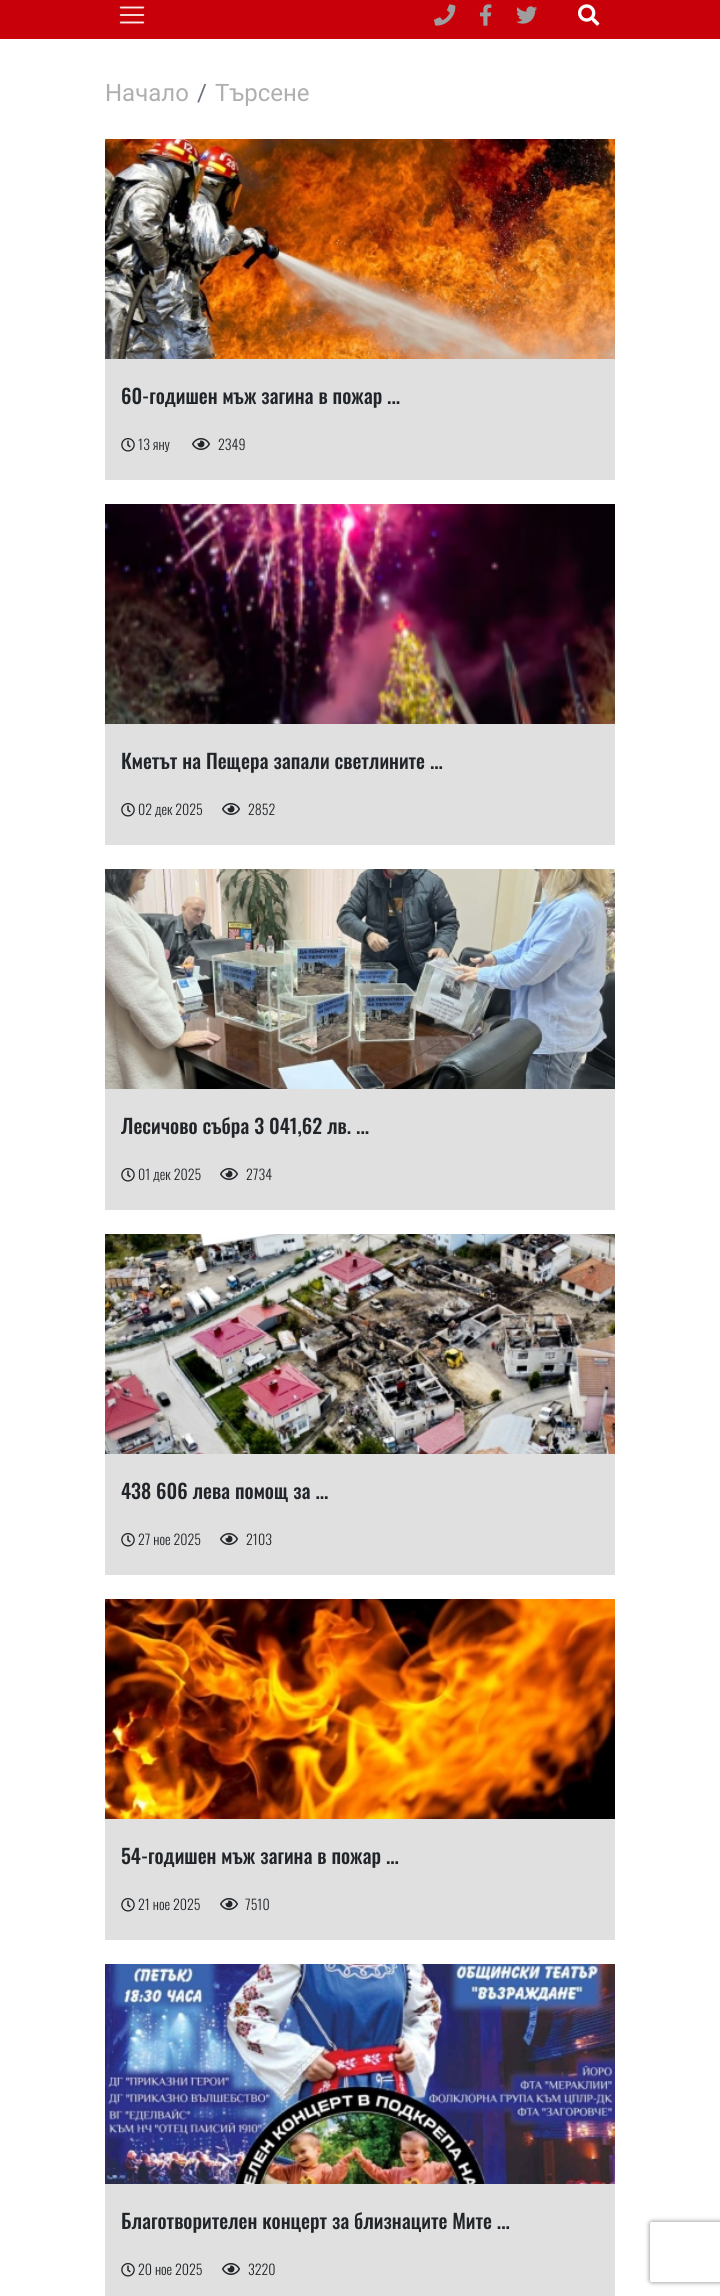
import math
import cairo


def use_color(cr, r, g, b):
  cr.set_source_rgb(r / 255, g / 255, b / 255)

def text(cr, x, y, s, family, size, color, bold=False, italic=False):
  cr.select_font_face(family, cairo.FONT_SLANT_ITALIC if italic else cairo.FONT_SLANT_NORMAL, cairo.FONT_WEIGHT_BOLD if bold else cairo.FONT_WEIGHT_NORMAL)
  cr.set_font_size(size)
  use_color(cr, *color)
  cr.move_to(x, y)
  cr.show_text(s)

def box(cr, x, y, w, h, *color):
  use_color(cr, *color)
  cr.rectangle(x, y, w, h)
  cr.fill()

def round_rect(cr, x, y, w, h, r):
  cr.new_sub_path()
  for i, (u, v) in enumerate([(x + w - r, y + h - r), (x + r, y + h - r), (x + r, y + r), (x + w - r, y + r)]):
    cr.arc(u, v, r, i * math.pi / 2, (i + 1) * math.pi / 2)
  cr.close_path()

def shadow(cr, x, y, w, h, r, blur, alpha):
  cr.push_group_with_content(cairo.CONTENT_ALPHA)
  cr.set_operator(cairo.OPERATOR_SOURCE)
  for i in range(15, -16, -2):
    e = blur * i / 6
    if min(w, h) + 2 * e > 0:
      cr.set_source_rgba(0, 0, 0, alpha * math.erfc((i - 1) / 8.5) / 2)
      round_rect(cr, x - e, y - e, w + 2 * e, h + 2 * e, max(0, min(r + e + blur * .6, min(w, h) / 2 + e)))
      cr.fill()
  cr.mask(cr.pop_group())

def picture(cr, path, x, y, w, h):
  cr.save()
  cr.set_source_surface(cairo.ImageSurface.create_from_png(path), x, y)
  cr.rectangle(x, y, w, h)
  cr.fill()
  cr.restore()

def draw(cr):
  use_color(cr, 255, 255, 255)
  cr.paint()
  box(cr, 0, 0, 720, 39, 199, 0, 9)
  picture(cr, "img_01.png", 119, 6, 26, 18)
  picture(cr, "img_02.png", 434, 4, 22, 22)
  picture(cr, "img_03.png", 479, 4, 13, 22)
  picture(cr, "img_04.png", 516, 6, 22, 18)
  picture(cr, "img_05.png", 578, 4, 22, 22)
  box(cr, 105, 359, 510, 121, 224, 224, 224)
  picture(cr, "img_06.png", 105, 139, 510, 220)
  picture(cr, "img_07.png", 121, 438, 14, 14)
  picture(cr, "img_08.png", 192, 438, 18, 12)
  box(cr, 105, 724, 510, 121, 224, 224, 224)
  picture(cr, "img_09.png", 105, 504, 510, 220)
  picture(cr, "img_07.png", 121, 803, 14, 14)
  picture(cr, "img_08.png", 222, 803, 18, 12)
  box(cr, 105, 1089, 510, 121, 224, 224, 224)
  picture(cr, "img_10.png", 105, 869, 510, 220)
  picture(cr, "img_07.png", 121, 1168, 14, 14)
  picture(cr, "img_08.png", 220, 1168, 18, 12)
  box(cr, 105, 1454, 510, 121, 224, 224, 224)
  picture(cr, "img_11.png", 105, 1234, 510, 220)
  picture(cr, "img_07.png", 121, 1533, 14, 14)
  picture(cr, "img_08.png", 220, 1533, 18, 12)
  box(cr, 105, 1819, 510, 121, 224, 224, 224)
  picture(cr, "img_12.png", 105, 1599, 510, 220)
  picture(cr, "img_07.png", 121, 1898, 14, 14)
  picture(cr, "img_08.png", 220, 1898, 18, 12)
  box(cr, 105, 2184, 510, 112, 224, 224, 224)
  picture(cr, "img_13.png", 105, 1964, 510, 220)
  picture(cr, "img_07.png", 121, 2263, 14, 14)
  picture(cr, "img_08.png", 222, 2263, 18, 12)
  cr.save()
  cr.set_fill_rule(cairo.FILL_RULE_EVEN_ODD)
  cr.new_path()
  cr.move_to(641, 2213)
  cr.line_to(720, 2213)
  cr.line_to(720, 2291)
  cr.line_to(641, 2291)
  cr.close_path()
  cr.move_to(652, 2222)
  cr.line_to(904, 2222)
  cr.curve_to(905, 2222, 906, 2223, 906, 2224)
  cr.line_to(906, 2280)
  cr.curve_to(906, 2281, 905, 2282, 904, 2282)
  cr.line_to(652, 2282)
  cr.curve_to(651, 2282, 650, 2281, 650, 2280)
  cr.line_to(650, 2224)
  cr.curve_to(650, 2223, 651, 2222, 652, 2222)
  cr.close_path()
  cr.clip()
  use_color(cr, 128, 128, 128)
  shadow(cr, 650, 2222, 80, 60, 2, 2.5, 1)
  cr.restore()
  text(cr, 105, 101, "Начало", "Roboto", 24, (175, 175, 175))
  text(cr, 197, 101, "/", "Roboto", 24, (108, 117, 125))
  text(cr, 215, 101, "Търсене", "Roboto", 24, (175, 175, 175))
  text(cr, 121, 404, "60-годишен мъж загина в пожар ...", "Oswald Medium", 20, (33, 37, 41))
  text(cr, 138, 450, "13 яну", "Oswald Light", 14, (33, 37, 41))
  text(cr, 218, 450, "2349", "Oswald Light", 14, (33, 37, 41))
  text(cr, 121, 769, "Кметът на Пещера запали светлините ...", "Oswald Medium", 20, (33, 37, 41))
  text(cr, 138, 815, "02 дек 2025", "Oswald Light", 14, (33, 37, 41))
  text(cr, 248, 815, "2852", "Oswald Light", 14, (33, 37, 41))
  text(cr, 121, 1134, "Лесичово събра 3 041,62 лв. ...", "Oswald Medium", 20, (33, 37, 41))
  text(cr, 138, 1180, "01 дек 2025", "Oswald Light", 14, (33, 37, 41))
  text(cr, 246, 1180, "2734", "Oswald Light", 14, (33, 37, 41))
  text(cr, 121, 1499, "438 606 лева помощ за ...", "Oswald Medium", 20, (33, 37, 41))
  text(cr, 138, 1545, "27 ное 2025", "Oswald Light", 14, (33, 37, 41))
  text(cr, 246, 1545, "2103", "Oswald Light", 14, (33, 37, 41))
  text(cr, 121, 1864, "54-годишен мъж загина в пожар ...", "Oswald Medium", 20, (33, 37, 41))
  text(cr, 138, 1910, "21 ное 2025", "Oswald Light", 14, (33, 37, 41))
  text(cr, 245, 1910, "7510", "Oswald Light", 14, (33, 37, 41))
  text(cr, 121, 2229, "Благотворителен концерт за близнаците Мите ...", "Oswald Medium", 20, (33, 37, 41))
  text(cr, 138, 2275, "20 ное 2025", "Oswald Light", 14, (33, 37, 41))
  text(cr, 248, 2275, "3220", "Oswald Light", 14, (33, 37, 41))


surface = cairo.ImageSurface(cairo.FORMAT_RGB24, 720, 2296)
cr = cairo.Context(surface)
options = cairo.FontOptions()
options.set_hint_metrics(cairo.HINT_METRICS_OFF)
options.set_hint_style(cairo.HINT_STYLE_NONE)
cr.set_font_options(options)
cr.set_miter_limit(4)
draw(cr)
surface.write_to_png("out.png")
